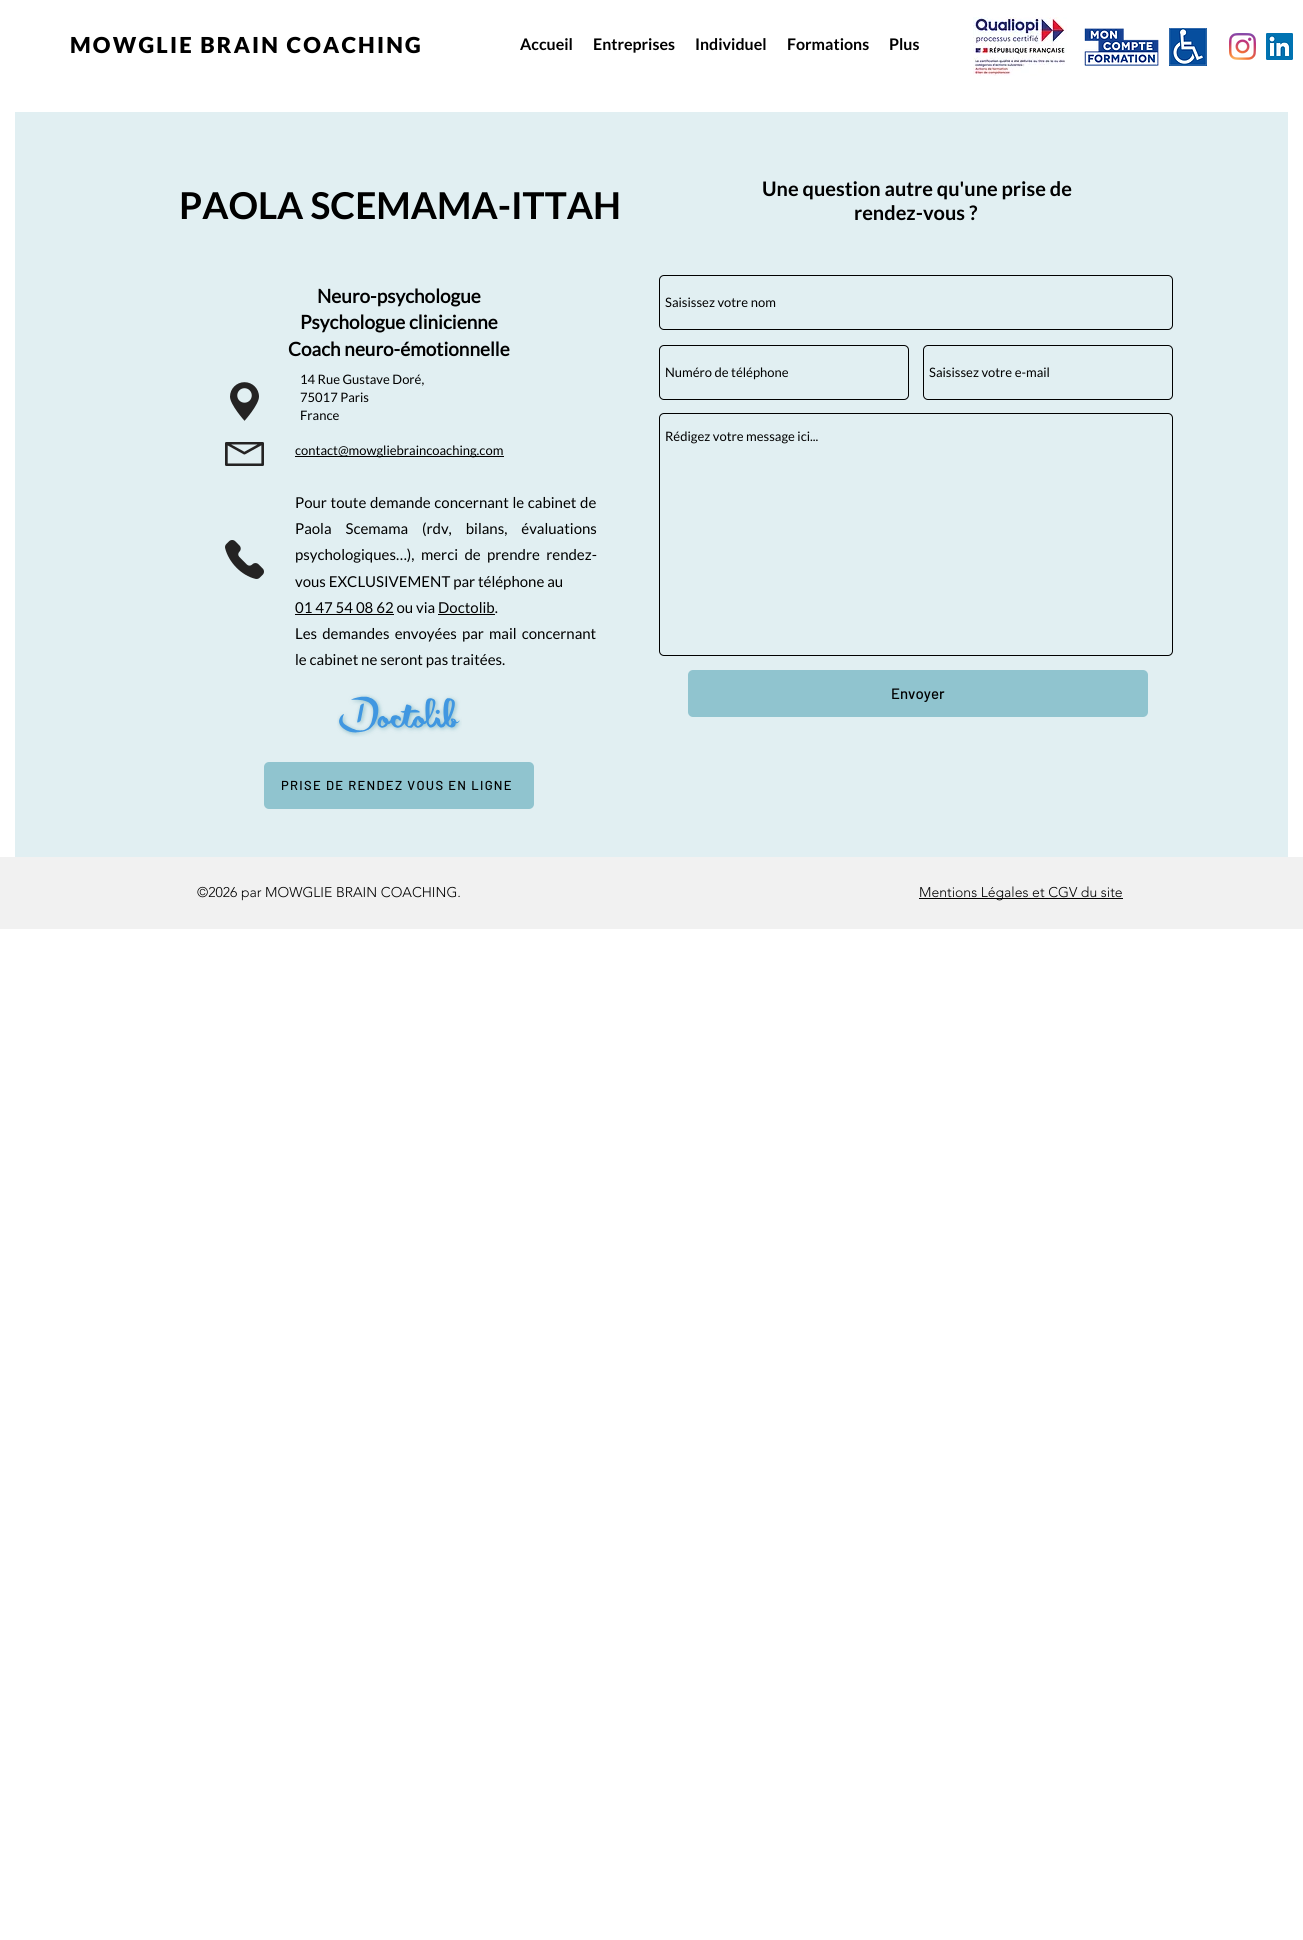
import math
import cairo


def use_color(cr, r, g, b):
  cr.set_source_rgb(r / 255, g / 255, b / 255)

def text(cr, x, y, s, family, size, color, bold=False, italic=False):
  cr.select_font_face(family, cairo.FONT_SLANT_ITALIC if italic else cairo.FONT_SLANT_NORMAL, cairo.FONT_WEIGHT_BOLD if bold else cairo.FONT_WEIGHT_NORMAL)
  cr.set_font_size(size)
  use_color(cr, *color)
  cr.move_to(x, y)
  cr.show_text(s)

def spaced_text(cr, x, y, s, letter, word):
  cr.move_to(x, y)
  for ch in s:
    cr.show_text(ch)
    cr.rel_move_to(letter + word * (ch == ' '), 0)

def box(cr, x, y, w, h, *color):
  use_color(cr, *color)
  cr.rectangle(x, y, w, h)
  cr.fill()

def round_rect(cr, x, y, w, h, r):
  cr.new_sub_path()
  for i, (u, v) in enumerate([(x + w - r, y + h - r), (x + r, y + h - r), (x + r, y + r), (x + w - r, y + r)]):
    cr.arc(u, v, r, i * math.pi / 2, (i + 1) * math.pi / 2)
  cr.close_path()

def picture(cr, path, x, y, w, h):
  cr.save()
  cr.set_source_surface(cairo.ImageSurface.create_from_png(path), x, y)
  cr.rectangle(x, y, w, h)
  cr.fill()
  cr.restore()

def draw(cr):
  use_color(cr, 255, 255, 255)
  cr.paint()
  picture(cr, "img_01.png", 973, 17, 94, 59)
  picture(cr, "img_02.png", 1084, 28, 75, 38)
  picture(cr, "img_03.png", 1169, 28, 38, 38)
  picture(cr, "img_04.png", 1229, 33, 27, 27)
  picture(cr, "img_05.png", 1266, 33, 27, 27)
  box(cr, 15, 112, 1273, 745, 225, 239, 242)
  picture(cr, "img_06.png", 230, 382, 29, 39)
  picture(cr, "img_07.png", 225, 442, 39, 24)
  box(cr, 295, 456, 209, 1, 0, 0, 0)
  picture(cr, "img_08.png", 225, 540, 39, 39)
  box(cr, 295, 614, 99, 1, 0, 0, 0)
  box(cr, 438, 614, 57, 1, 0, 0, 0)
  picture(cr, "img_09.png", 337, 694, 125, 43)
  use_color(cr, 144, 196, 207)
  round_rect(cr, 264, 762, 270, 47, 5)
  cr.fill()
  round_rect(cr, 659.5, 275.5, 513, 54, 4.5)
  use_color(cr, 0, 0, 0)
  cr.set_line_width(1)
  cr.stroke()
  round_rect(cr, 659.5, 345.5, 249, 54, 4.5)
  cr.stroke()
  round_rect(cr, 923.5, 345.5, 249, 54, 4.5)
  cr.stroke()
  round_rect(cr, 659.5, 413.5, 513, 242, 4.5)
  cr.stroke()
  use_color(cr, 144, 196, 207)
  round_rect(cr, 688, 670, 460, 47, 5)
  cr.fill()
  box(cr, 0, 857, 1303, 72, 241, 241, 241)
  box(cr, 919, 898, 204, 1, 0, 0, 0)
  cr.select_font_face("Lato Black")
  cr.set_font_size(22)
  spaced_text(cr, 70, 53, "MOWGLIE BRAIN COACHING", 2.2, 0)
  text(cr, 520, 50, "Accueil", "Lato", 16, (0, 0, 0), bold=True)
  text(cr, 593, 50, "Entreprises", "Lato", 16, (0, 0, 0), bold=True)
  text(cr, 695, 50, "Individuel", "Lato", 16, (0, 0, 0), bold=True)
  text(cr, 787, 50, "Formations", "Lato", 16, (0, 0, 0), bold=True)
  text(cr, 889, 50, "Plus", "Lato", 16, (0, 0, 0), bold=True)
  text(cr, 179, 219, "PAOLA SCEMAMA-ITTAH", "Lato", 37, (0, 0, 0), bold=True)
  text(cr, 317, 303, "Neuro-psychologue", "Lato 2", 19, (0, 0, 0), bold=True)
  text(cr, 300, 329, "Psychologue clinicienne", "Lato 2", 19, (0, 0, 0), bold=True)
  text(cr, 288, 356, "Coach neuro-émotionnelle", "Lato 2", 19, (0, 0, 0), bold=True)
  text(cr, 300, 384, "14 Rue Gustave Doré,", "Lato", 13, (0, 0, 0))
  text(cr, 300, 402, "75017 Paris", "Lato", 13, (0, 0, 0))
  text(cr, 300, 420, "France", "Lato", 13, (0, 0, 0))
  text(cr, 295, 455, "contact@mowgliebraincoaching.com", "Lato", 13, (0, 0, 0))
  cr.set_font_size(15)
  spaced_text(cr, 295, 508, "Pour toute demande concernant le cabinet de", 0, 0.75)
  spaced_text(cr, 295, 534, "Paola Scemama (rdv, bilans, évaluations", 0, 11)
  spaced_text(cr, 295, 560, "psychologiques…), merci de prendre rendez-", 0, 3.5)
  text(cr, 295, 587, "vous EXCLUSIVEMENT par téléphone au", "Lato", 15, (0, 0, 0))
  text(cr, 295, 613, "01 47 54 08 62 ou via Doctolib.", "Lato", 15, (0, 0, 0))
  spaced_text(cr, 295, 639, "Les demandes envoyées par mail concernant", 0, 2.25)
  text(cr, 295, 665, "le cabinet ne seront pas traitées.", "Lato", 15, (0, 0, 0))
  cr.select_font_face("Barlow Medium")
  cr.set_font_size(13)
  spaced_text(cr, 281, 790, "PRISE DE RENDEZ VOUS EN LIGNE", 1.3, 0)
  text(cr, 762, 196, "Une question autre qu'une prise de", "Lato", 20, (0, 0, 0), bold=True)
  text(cr, 854, 220, "rendez-vous ?", "Lato", 20, (0, 0, 0), bold=True)
  text(cr, 665, 307, "Saisissez votre nom", "Lato", 13, (0, 0, 0))
  text(cr, 665, 377, "Numéro de téléphone", "Lato", 13, (0, 0, 0))
  text(cr, 929, 377, "Saisissez votre e-mail", "Lato", 13, (0, 0, 0))
  text(cr, 665, 441, "Rédigez votre message ici...", "Lato", 13, (0, 0, 0))
  text(cr, 891, 699, "Envoyer", "Barlow Medium", 15, (0, 0, 0))
  text(cr, 197, 897, "©2026 par MOWGLIE BRAIN COACHING.", "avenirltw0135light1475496 Light", 14, (0, 0, 0))
  text(cr, 919, 897, "Mentions Légales et CGV du site", "avenirltw0135light1475496 Light", 14, (0, 0, 0))


surface = cairo.ImageSurface(cairo.FORMAT_RGB24, 1303, 1940)
cr = cairo.Context(surface)
options = cairo.FontOptions()
options.set_hint_metrics(cairo.HINT_METRICS_OFF)
options.set_hint_style(cairo.HINT_STYLE_NONE)
cr.set_font_options(options)
cr.set_miter_limit(4)
draw(cr)
surface.write_to_png("out.png")
